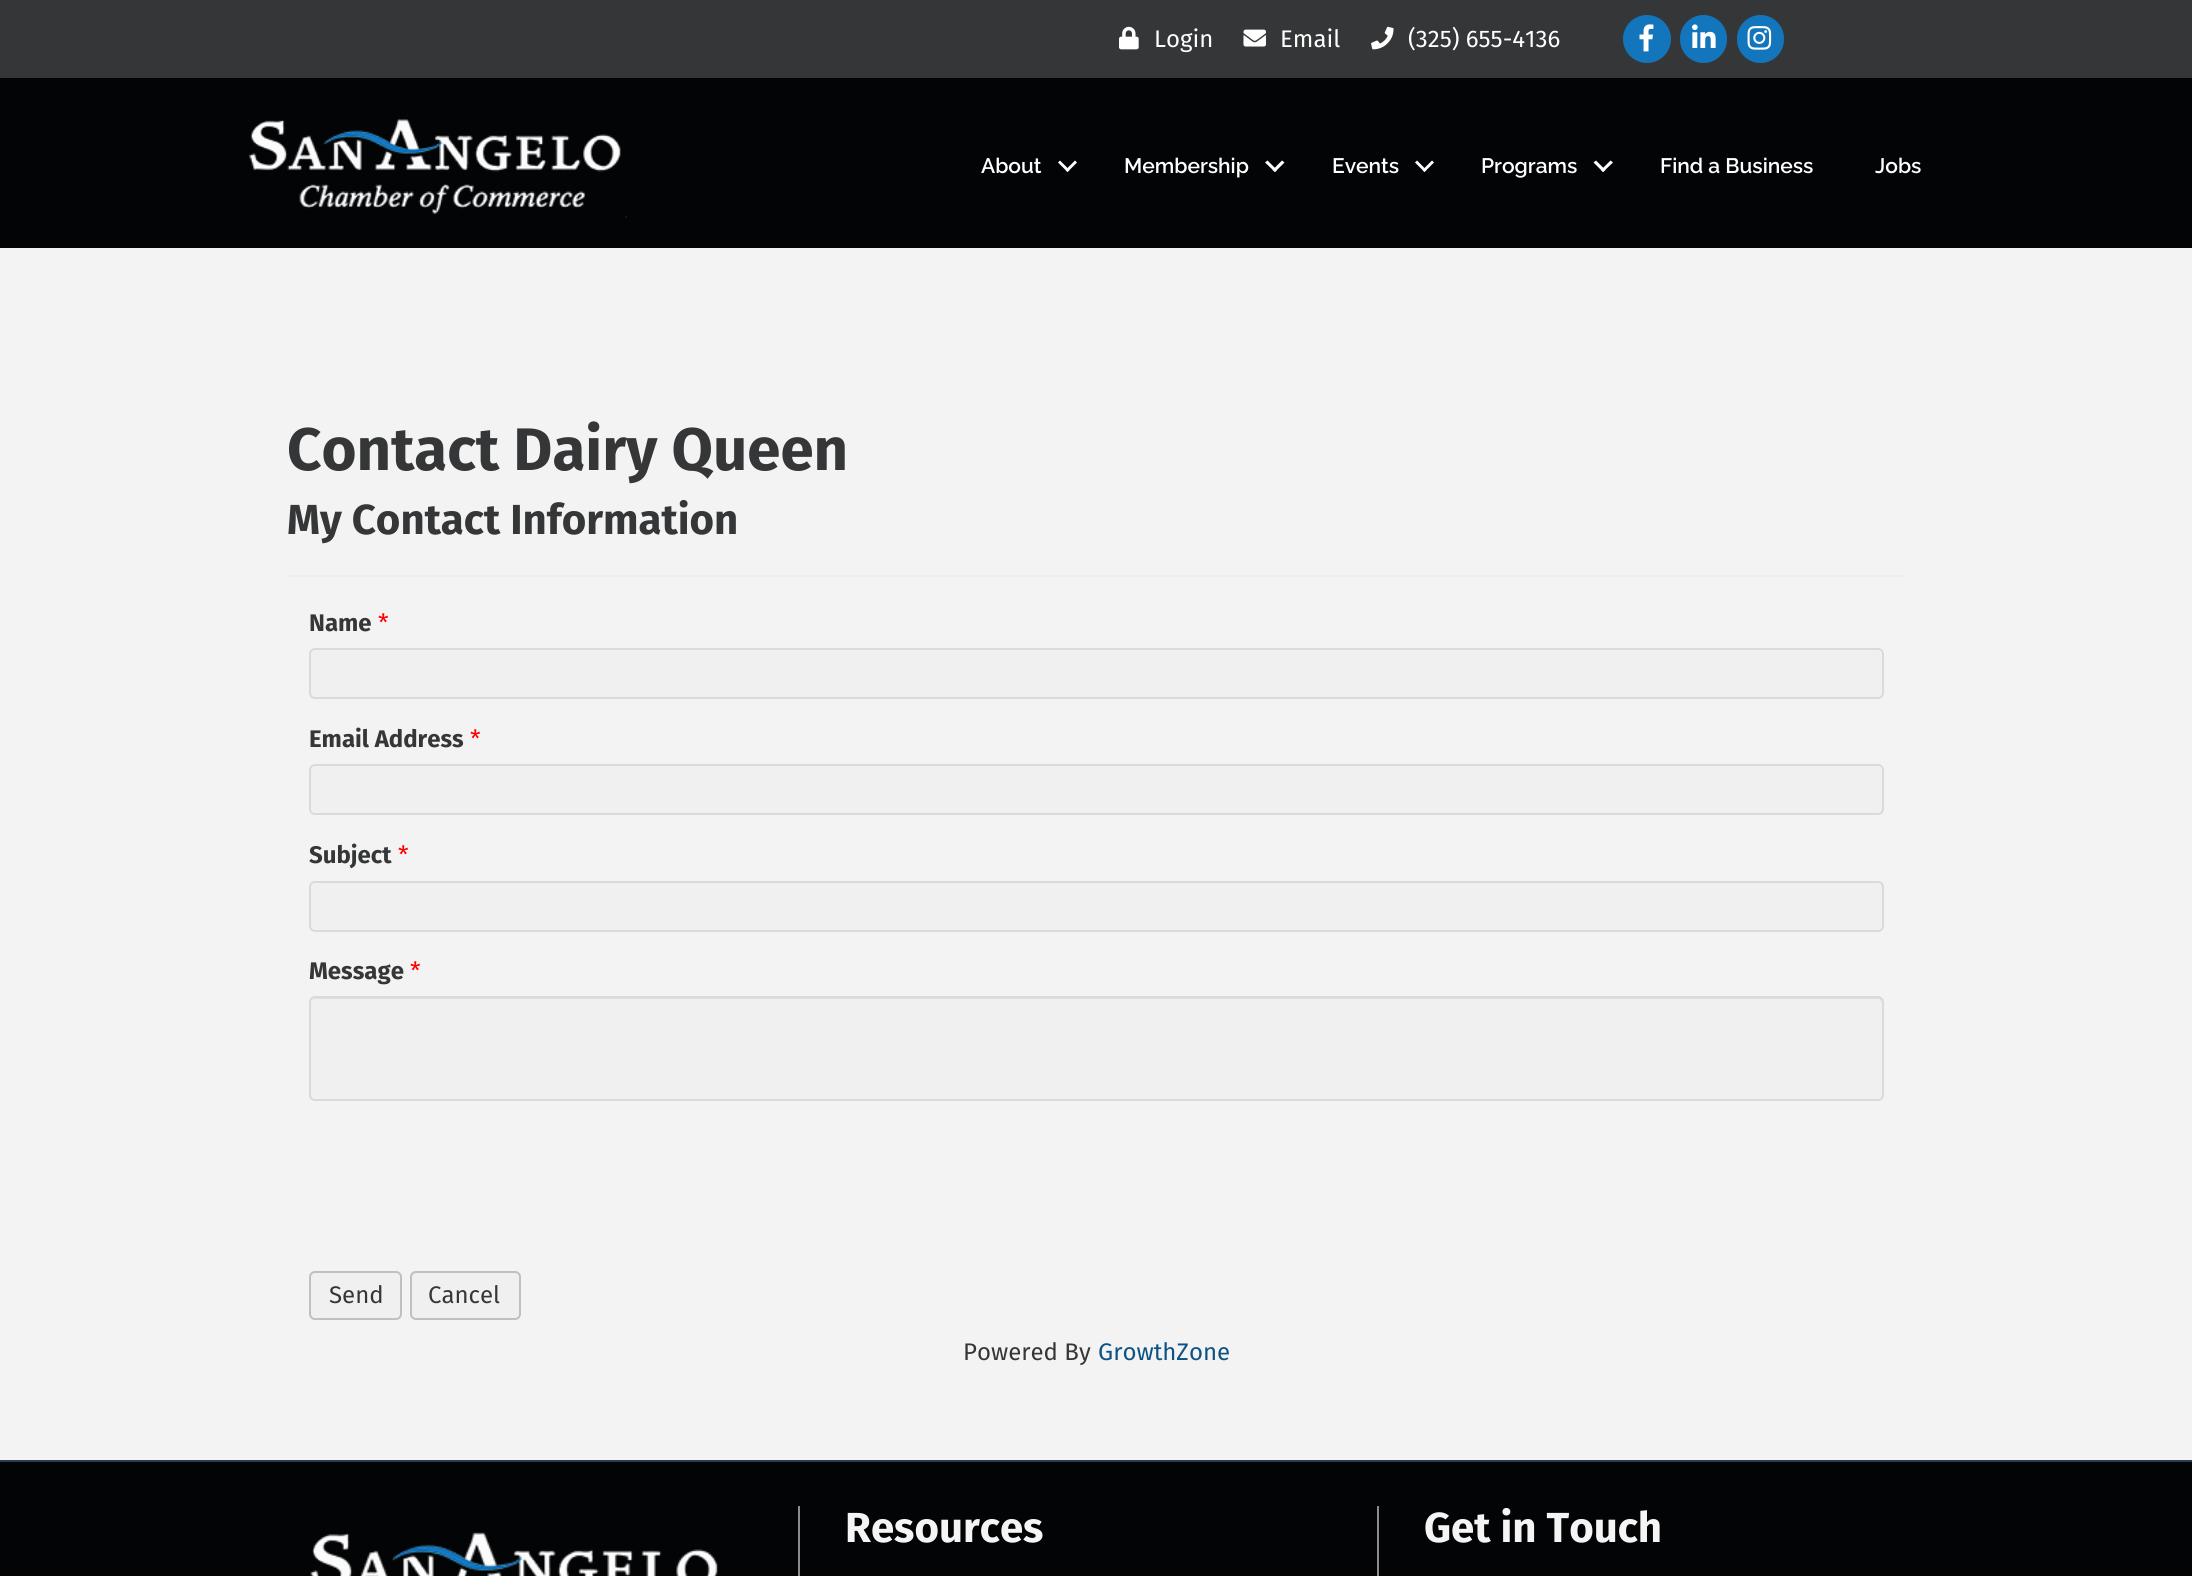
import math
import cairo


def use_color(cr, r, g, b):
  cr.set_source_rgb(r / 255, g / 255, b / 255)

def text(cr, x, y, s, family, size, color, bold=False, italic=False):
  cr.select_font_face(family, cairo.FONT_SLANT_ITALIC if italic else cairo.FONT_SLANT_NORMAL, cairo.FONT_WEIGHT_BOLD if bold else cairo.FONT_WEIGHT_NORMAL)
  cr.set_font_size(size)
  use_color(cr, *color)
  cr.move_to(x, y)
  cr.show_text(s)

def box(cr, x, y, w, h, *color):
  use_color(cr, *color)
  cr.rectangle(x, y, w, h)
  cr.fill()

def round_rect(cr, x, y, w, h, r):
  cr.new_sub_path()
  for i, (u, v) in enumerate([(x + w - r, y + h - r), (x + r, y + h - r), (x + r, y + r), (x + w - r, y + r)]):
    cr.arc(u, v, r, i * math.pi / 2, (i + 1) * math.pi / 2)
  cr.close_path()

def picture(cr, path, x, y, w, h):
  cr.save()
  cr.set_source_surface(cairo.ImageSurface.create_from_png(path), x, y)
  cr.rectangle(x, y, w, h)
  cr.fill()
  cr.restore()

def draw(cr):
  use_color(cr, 53, 54, 55)
  cr.paint()
  picture(cr, "img_01.png", 1119, 26, 20, 24)
  picture(cr, "img_02.png", 1243, 29, 23, 18)
  picture(cr, "img_03.png", 1371, 26, 23, 24)
  use_color(cr, 19, 117, 188)
  cr.arc(1647, 39, 24, 0, 2 * math.pi)
  cr.fill()
  picture(cr, "img_04.png", 1639, 24, 15, 28)
  round_rect(cr, 1680, 15, 47, 48, 23.5)
  cr.fill()
  picture(cr, "img_05.png", 1692, 24, 24, 24)
  round_rect(cr, 1737, 15, 47, 48, 23.5)
  cr.fill()
  picture(cr, "img_06.png", 1747, 26, 25, 24)
  box(cr, 0, 78, 2192, 170, 3, 4, 6)
  picture(cr, "img_07.png", 248, 119, 379, 99)
  use_color(cr, 255, 255, 255)
  cr.new_path()
  cr.move_to(1075, 160.5)
  cr.line_to(1077, 162.5)
  cr.line_to(1067.5, 172)
  cr.line_to(1065.5, 170)
  cr.close_path()
  cr.fill()
  cr.new_path()
  cr.move_to(1060, 160.5)
  cr.line_to(1069.5, 170)
  cr.line_to(1067.5, 172)
  cr.line_to(1058, 162.5)
  cr.close_path()
  cr.fill()
  cr.new_path()
  cr.move_to(1282, 160.5)
  cr.line_to(1284.5, 162.5)
  cr.line_to(1275, 172)
  cr.line_to(1272.5, 170)
  cr.close_path()
  cr.fill()
  cr.new_path()
  cr.move_to(1267.5, 160.5)
  cr.line_to(1277, 170)
  cr.line_to(1275, 172)
  cr.line_to(1265, 162.5)
  cr.close_path()
  cr.fill()
  cr.new_path()
  cr.move_to(1432, 160.5)
  cr.line_to(1434, 162.5)
  cr.line_to(1424.5, 172)
  cr.line_to(1422.5, 170)
  cr.close_path()
  cr.fill()
  cr.new_path()
  cr.move_to(1417, 160.5)
  cr.line_to(1426.5, 170)
  cr.line_to(1424.5, 172)
  cr.line_to(1415, 162.5)
  cr.close_path()
  cr.fill()
  cr.new_path()
  cr.move_to(1610.5, 160.5)
  cr.line_to(1613, 162.5)
  cr.line_to(1603, 172)
  cr.line_to(1601, 170)
  cr.close_path()
  cr.fill()
  cr.new_path()
  cr.move_to(1596, 160.5)
  cr.line_to(1605.5, 170)
  cr.line_to(1603, 172)
  cr.line_to(1593.5, 162.5)
  cr.close_path()
  cr.fill()
  box(cr, 0, 248, 2192, 1212, 243, 243, 243)
  box(cr, 287, 575, 1620, 2, 238, 238, 238)
  use_color(cr, 240, 240, 240)
  round_rect(cr, 310, 649, 1573, 49, 5)
  cr.fill_preserve()
  use_color(cr, 218, 218, 218)
  cr.stroke()
  use_color(cr, 240, 240, 240)
  round_rect(cr, 310, 765, 1573, 49, 5)
  cr.fill_preserve()
  use_color(cr, 218, 218, 218)
  cr.stroke()
  use_color(cr, 240, 240, 240)
  round_rect(cr, 310, 882, 1573, 49, 5)
  cr.fill_preserve()
  use_color(cr, 218, 218, 218)
  cr.stroke()
  use_color(cr, 240, 240, 240)
  round_rect(cr, 309, 996, 1575, 105, 6)
  cr.fill()
  use_color(cr, 222, 222, 222)
  cr.new_path()
  cr.move_to(315, 999)
  cr.line_to(1878, 999)
  cr.curve_to(1880, 999, 1882, 1001, 1882, 1004)
  cr.line_to(1882, 1096)
  cr.line_to(1881, 1099)
  cr.curve_to(1882, 1098, 1883, 1096, 1883, 1095)
  cr.line_to(1883, 1003)
  cr.curve_to(1883, 1000, 1881, 998, 1878, 998)
  cr.line_to(316, 998)
  cr.curve_to(314, 998, 313, 999, 312, 1000)
  cr.close_path()
  cr.fill()
  round_rect(cr, 310, 997, 1573, 103, 5)
  use_color(cr, 218, 218, 218)
  cr.stroke()
  use_color(cr, 240, 240, 240)
  round_rect(cr, 310, 1272, 91, 47, 5)
  cr.fill_preserve()
  use_color(cr, 192, 192, 192)
  cr.stroke()
  use_color(cr, 240, 240, 240)
  round_rect(cr, 411, 1272, 109, 47, 5)
  cr.fill_preserve()
  use_color(cr, 192, 192, 192)
  cr.stroke()
  box(cr, 0, 1462, 2192, 114, 3, 4, 6)
  box(cr, 0, 1460, 2192, 2, 44, 58, 86)
  box(cr, 798, 1506, 2, 70, 139, 140, 140)
  box(cr, 1377, 1506, 2, 70, 139, 140, 140)
  picture(cr, "img_08.png", 310, 1532, 408, 44)
  text(cr, 1154, 47, "Login", "Fira Sans", 24, (255, 255, 255))
  text(cr, 1280, 47, "Email", "Fira Sans", 24, (255, 255, 255))
  text(cr, 1408, 47, "(325) 655-4136", "Fira Sans", 24, (255, 255, 255))
  text(cr, 981, 173, "About", "Raleway SemiBold", 21, (255, 255, 255))
  text(cr, 1124, 173, "Membership", "Raleway SemiBold", 21, (255, 255, 255))
  text(cr, 1332, 173, "Events", "Raleway SemiBold", 21, (255, 255, 255))
  text(cr, 1481, 173, "Programs", "Raleway SemiBold", 21, (255, 255, 255))
  text(cr, 1660, 173, "Find a Business", "Raleway SemiBold", 21, (255, 255, 255))
  text(cr, 1875, 173, "Jobs", "Raleway SemiBold", 21, (255, 255, 255))
  text(cr, 287, 470, "Contact Dairy Queen", "Fira Sans", 60, (53, 54, 55), bold=True)
  text(cr, 287, 534, "My Contact Information", "Fira Sans", 42, (53, 54, 55), bold=True)
  text(cr, 309, 631, "Name", "Fira Sans", 24, (53, 54, 55), bold=True)
  text(cr, 378, 631, "*", "Fira Sans", 24, (255, 0, 0))
  text(cr, 309, 747, "Email Address", "Fira Sans", 24, (53, 54, 55), bold=True)
  text(cr, 470, 747, "*", "Fira Sans", 24, (255, 0, 0))
  text(cr, 309, 863, "Subject", "Fira Sans", 24, (53, 54, 55), bold=True)
  text(cr, 398, 863, "*", "Fira Sans", 24, (255, 0, 0))
  text(cr, 309, 979, "Message", "Fira Sans", 24, (53, 54, 55), bold=True)
  text(cr, 410, 979, "*", "Fira Sans", 24, (255, 0, 0))
  text(cr, 329, 1303, "Send", "Fira Sans", 24, (53, 54, 55))
  text(cr, 428, 1303, "Cancel", "Fira Sans", 24, (53, 54, 55))
  text(cr, 963, 1360, "Powered By", "Fira Sans", 24, (53, 54, 55))
  text(cr, 1098, 1360, "GrowthZone", "Fira Sans", 24, (13, 82, 131))
  text(cr, 845, 1542, "Resources", "Fira Sans", 42, (245, 245, 245), bold=True)
  text(cr, 1424, 1542, "Get in Touch", "Fira Sans", 42, (245, 245, 245), bold=True)


surface = cairo.ImageSurface(cairo.FORMAT_RGB24, 2192, 1576)
cr = cairo.Context(surface)
options = cairo.FontOptions()
options.set_hint_metrics(cairo.HINT_METRICS_OFF)
options.set_hint_style(cairo.HINT_STYLE_NONE)
cr.set_font_options(options)
cr.set_miter_limit(4)
draw(cr)
surface.write_to_png("out.png")
